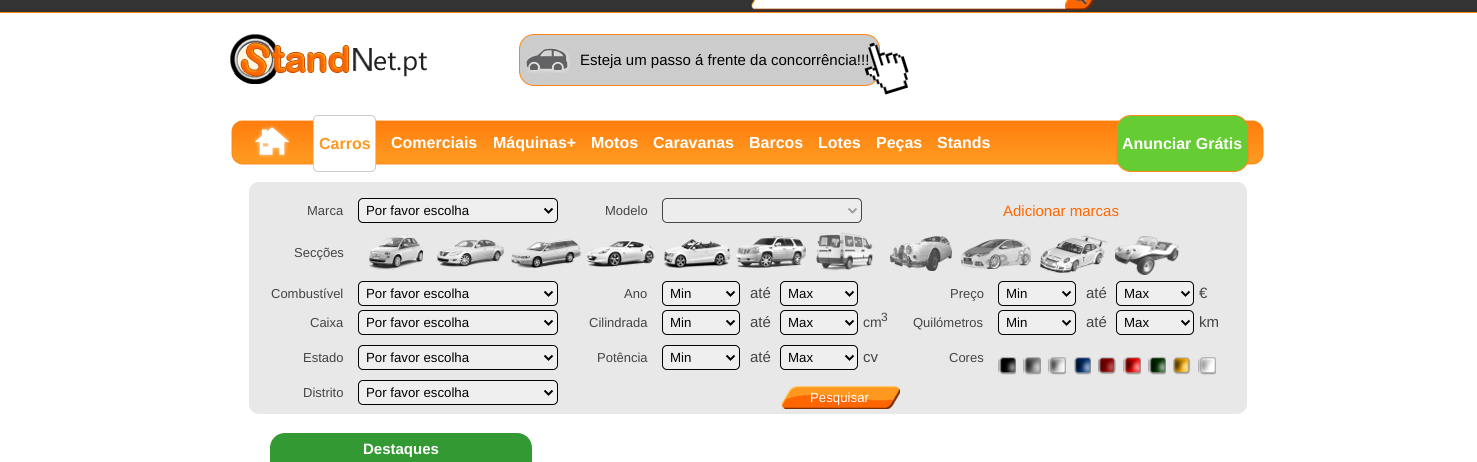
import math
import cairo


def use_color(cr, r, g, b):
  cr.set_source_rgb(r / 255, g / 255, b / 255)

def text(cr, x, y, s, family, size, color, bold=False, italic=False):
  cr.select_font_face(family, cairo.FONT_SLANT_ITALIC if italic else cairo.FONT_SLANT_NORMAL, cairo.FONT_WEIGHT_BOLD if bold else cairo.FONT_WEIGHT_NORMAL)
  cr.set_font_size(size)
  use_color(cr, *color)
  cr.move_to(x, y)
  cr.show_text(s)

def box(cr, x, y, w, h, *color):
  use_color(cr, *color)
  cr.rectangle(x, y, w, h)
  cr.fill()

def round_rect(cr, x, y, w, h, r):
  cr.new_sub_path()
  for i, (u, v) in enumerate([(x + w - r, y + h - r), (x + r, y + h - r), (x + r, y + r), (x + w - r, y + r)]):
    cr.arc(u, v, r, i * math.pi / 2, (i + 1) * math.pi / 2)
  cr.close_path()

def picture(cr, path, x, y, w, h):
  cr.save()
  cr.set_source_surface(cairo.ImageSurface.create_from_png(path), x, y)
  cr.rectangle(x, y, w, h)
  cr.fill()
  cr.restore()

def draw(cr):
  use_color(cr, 255, 255, 255)
  cr.paint()
  box(cr, 0, 0, 1477, 12, 51, 51, 51)
  box(cr, 0, 12, 1477, 1, 255, 133, 20)
  picture(cr, "img_01.png", 751, 0, 19, 10)
  picture(cr, "img_02.png", 1064, 0, 31, 10)
  picture(cr, "img_03.png", 770, 0, 295, 10)
  picture(cr, "img_04.png", 230, 34, 197, 50)
  use_color(cr, 204, 204, 204)
  round_rect(cr, 519.5, 34.5, 360, 51, 14.5)
  cr.fill_preserve()
  use_color(cr, 255, 133, 20)
  cr.set_line_width(1)
  cr.stroke()
  picture(cr, "img_05.png", 525, 48, 46, 25)
  picture(cr, "img_07.png", 231, 120, 19, 45)
  picture(cr, "img_08.png", 250, 120, 996, 45)
  picture(cr, "img_09.png", 253, 125, 38, 33)
  use_color(cr, 255, 255, 255)
  round_rect(cr, 313.5, 115.5, 62, 56, 4.5)
  cr.fill_preserve()
  use_color(cr, 204, 204, 204)
  cr.stroke()
  picture(cr, "img_10.png", 1246, 120, 18, 45)
  use_color(cr, 102, 204, 51)
  round_rect(cr, 1116.5, 115.5, 132, 56, 14.5)
  cr.fill_preserve()
  use_color(cr, 255, 136, 21)
  cr.stroke()
  use_color(cr, 232, 232, 232)
  round_rect(cr, 249, 182, 998, 232, 10)
  cr.fill()
  use_color(cr, 239, 239, 239)
  round_rect(cr, 358.5, 198.5, 199, 24, 4.5)
  cr.fill_preserve()
  use_color(cr, 0, 0, 0)
  cr.stroke()
  cr.new_path()
  cr.move_to(544.5, 208.5)
  cr.line_to(548.5, 212.5)
  cr.line_to(552.5, 208.5)
  cr.set_line_width(2)
  cr.stroke()
  use_color(cr, 237, 237, 237)
  round_rect(cr, 662.5, 198.5, 199, 24, 4.5)
  cr.fill_preserve()
  use_color(cr, 70, 70, 70)
  cr.set_line_width(1)
  cr.stroke()
  cr.new_path()
  cr.move_to(848.5, 208.5)
  cr.line_to(852.5, 212.5)
  cr.line_to(856.5, 208.5)
  use_color(cr, 159, 159, 159)
  cr.set_line_width(2)
  cr.stroke()
  picture(cr, "img_11.png", 369, 234, 54, 36)
  picture(cr, "img_12.png", 437, 239, 67, 28)
  picture(cr, "img_13.png", 511, 239, 70, 29)
  picture(cr, "img_14.png", 586, 240, 69, 27)
  picture(cr, "img_15.png", 664, 239, 67, 29)
  picture(cr, "img_16.png", 736, 236, 70, 32)
  picture(cr, "img_17.png", 816, 232, 57, 39)
  picture(cr, "img_18.png", 890, 236, 62, 35)
  picture(cr, "img_19.png", 961, 239, 70, 30)
  picture(cr, "img_20.png", 1040, 235, 68, 38)
  picture(cr, "img_21.png", 1115, 236, 64, 39)
  use_color(cr, 239, 239, 239)
  round_rect(cr, 358.5, 281.5, 199, 24, 4.5)
  cr.fill_preserve()
  use_color(cr, 0, 0, 0)
  cr.set_line_width(1)
  cr.stroke()
  cr.new_path()
  cr.move_to(544.5, 291.5)
  cr.line_to(548.5, 295.5)
  cr.line_to(552.5, 291.5)
  cr.set_line_width(2)
  cr.stroke()
  use_color(cr, 239, 239, 239)
  round_rect(cr, 662.5, 281.5, 77, 24, 4.5)
  cr.fill_preserve()
  use_color(cr, 0, 0, 0)
  cr.set_line_width(1)
  cr.stroke()
  cr.new_path()
  cr.move_to(726.5, 291.5)
  cr.line_to(730.5, 295.5)
  cr.line_to(734.5, 291.5)
  cr.set_line_width(2)
  cr.stroke()
  use_color(cr, 239, 239, 239)
  round_rect(cr, 780.5, 281.5, 77, 24, 4.5)
  cr.fill_preserve()
  use_color(cr, 0, 0, 0)
  cr.set_line_width(1)
  cr.stroke()
  cr.new_path()
  cr.move_to(845.5, 291.5)
  cr.line_to(849.5, 295.5)
  cr.line_to(853.5, 291.5)
  cr.set_line_width(2)
  cr.stroke()
  use_color(cr, 239, 239, 239)
  round_rect(cr, 998.5, 281.5, 77, 24, 4.5)
  cr.fill_preserve()
  use_color(cr, 0, 0, 0)
  cr.set_line_width(1)
  cr.stroke()
  cr.new_path()
  cr.move_to(1062.5, 291.5)
  cr.line_to(1066.5, 295.5)
  cr.line_to(1070.5, 291.5)
  cr.set_line_width(2)
  cr.stroke()
  use_color(cr, 239, 239, 239)
  round_rect(cr, 1116.5, 281.5, 77, 24, 4.5)
  cr.fill_preserve()
  use_color(cr, 0, 0, 0)
  cr.set_line_width(1)
  cr.stroke()
  cr.new_path()
  cr.move_to(1181.5, 291.5)
  cr.line_to(1185.5, 295.5)
  cr.line_to(1189.5, 291.5)
  cr.set_line_width(2)
  cr.stroke()
  use_color(cr, 239, 239, 239)
  round_rect(cr, 358.5, 310.5, 199, 24, 4.5)
  cr.fill_preserve()
  use_color(cr, 0, 0, 0)
  cr.set_line_width(1)
  cr.stroke()
  cr.new_path()
  cr.move_to(544.5, 320.5)
  cr.line_to(548.5, 324.5)
  cr.line_to(552.5, 320.5)
  cr.set_line_width(2)
  cr.stroke()
  use_color(cr, 239, 239, 239)
  round_rect(cr, 662.5, 310.5, 77, 24, 4.5)
  cr.fill_preserve()
  use_color(cr, 0, 0, 0)
  cr.set_line_width(1)
  cr.stroke()
  cr.new_path()
  cr.move_to(726.5, 320.5)
  cr.line_to(730.5, 324.5)
  cr.line_to(734.5, 320.5)
  cr.set_line_width(2)
  cr.stroke()
  use_color(cr, 239, 239, 239)
  round_rect(cr, 780.5, 310.5, 77, 24, 4.5)
  cr.fill_preserve()
  use_color(cr, 0, 0, 0)
  cr.set_line_width(1)
  cr.stroke()
  cr.new_path()
  cr.move_to(845.5, 320.5)
  cr.line_to(849.5, 324.5)
  cr.line_to(853.5, 320.5)
  cr.set_line_width(2)
  cr.stroke()
  use_color(cr, 239, 239, 239)
  round_rect(cr, 998.5, 310.5, 77, 24, 4.5)
  cr.fill_preserve()
  use_color(cr, 0, 0, 0)
  cr.set_line_width(1)
  cr.stroke()
  cr.new_path()
  cr.move_to(1062.5, 320.5)
  cr.line_to(1066.5, 324.5)
  cr.line_to(1070.5, 320.5)
  cr.set_line_width(2)
  cr.stroke()
  use_color(cr, 239, 239, 239)
  round_rect(cr, 1116.5, 310.5, 77, 24, 4.5)
  cr.fill_preserve()
  use_color(cr, 0, 0, 0)
  cr.set_line_width(1)
  cr.stroke()
  cr.new_path()
  cr.move_to(1181.5, 320.5)
  cr.line_to(1185.5, 324.5)
  cr.line_to(1189.5, 320.5)
  cr.set_line_width(2)
  cr.stroke()
  use_color(cr, 239, 239, 239)
  round_rect(cr, 358.5, 345.5, 199, 24, 4.5)
  cr.fill_preserve()
  use_color(cr, 0, 0, 0)
  cr.set_line_width(1)
  cr.stroke()
  cr.new_path()
  cr.move_to(544.5, 355.5)
  cr.line_to(548.5, 359.5)
  cr.line_to(552.5, 355.5)
  cr.set_line_width(2)
  cr.stroke()
  use_color(cr, 239, 239, 239)
  round_rect(cr, 662.5, 345.5, 77, 24, 4.5)
  cr.fill_preserve()
  use_color(cr, 0, 0, 0)
  cr.set_line_width(1)
  cr.stroke()
  cr.new_path()
  cr.move_to(726.5, 355.5)
  cr.line_to(730.5, 359.5)
  cr.line_to(734.5, 355.5)
  cr.set_line_width(2)
  cr.stroke()
  use_color(cr, 239, 239, 239)
  round_rect(cr, 780.5, 345.5, 77, 24, 4.5)
  cr.fill_preserve()
  use_color(cr, 0, 0, 0)
  cr.set_line_width(1)
  cr.stroke()
  cr.new_path()
  cr.move_to(845.5, 355.5)
  cr.line_to(849.5, 359.5)
  cr.line_to(853.5, 355.5)
  cr.set_line_width(2)
  cr.stroke()
  picture(cr, "img_22.png", 998, 357, 18, 18)
  picture(cr, "img_23.png", 1023, 357, 18, 18)
  picture(cr, "img_24.png", 1048, 357, 18, 18)
  picture(cr, "img_25.png", 1074, 357, 17, 18)
  picture(cr, "img_26.png", 1098, 357, 18, 18)
  picture(cr, "img_27.png", 1123, 357, 18, 18)
  picture(cr, "img_28.png", 1148, 357, 18, 18)
  picture(cr, "img_29.png", 1173, 357, 18, 18)
  picture(cr, "img_30.png", 1198, 357, 18, 18)
  use_color(cr, 239, 239, 239)
  round_rect(cr, 358.5, 380.5, 199, 24, 4.5)
  cr.fill_preserve()
  use_color(cr, 0, 0, 0)
  cr.set_line_width(1)
  cr.stroke()
  cr.new_path()
  cr.move_to(544.5, 390.5)
  cr.line_to(548.5, 394.5)
  cr.line_to(552.5, 390.5)
  cr.set_line_width(2)
  cr.stroke()
  picture(cr, "img_31.png", 781, 386, 119, 23)
  use_color(cr, 51, 153, 51)
  cr.new_path()
  cr.move_to(285, 433)
  cr.line_to(517, 433)
  cr.curve_to(525.5, 433, 532, 439.5, 532, 448)
  cr.line_to(532, 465)
  cr.line_to(270, 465)
  cr.line_to(270, 448)
  cr.curve_to(270, 439.5, 276.5, 433, 285, 433)
  cr.close_path()
  cr.fill()
  text(cr, 580, 65, "Esteja um passo á frente da concorrência!!!", "Liberation Sans", 15, (0, 0, 0))
  picture(cr, "img_06.png", 864, 42, 45, 53)
  text(cr, 319, 149, "Carros", "Liberation Sans", 16, (255, 152, 30), bold=True)
  text(cr, 391, 148, "Comerciais", "Liberation Sans", 16, (255, 255, 255), bold=True)
  text(cr, 493, 148, "Máquinas+", "Liberation Sans", 16, (255, 255, 255), bold=True)
  text(cr, 591, 148, "Motos", "Liberation Sans", 16, (255, 255, 255), bold=True)
  text(cr, 653, 148, "Caravanas", "Liberation Sans", 16, (255, 255, 255), bold=True)
  text(cr, 749, 148, "Barcos", "Liberation Sans", 16, (255, 255, 255), bold=True)
  text(cr, 818, 148, "Lotes", "Liberation Sans", 16, (255, 255, 255), bold=True)
  text(cr, 876, 148, "Peças", "Liberation Sans", 16, (255, 255, 255), bold=True)
  text(cr, 937, 148, "Stands", "Liberation Sans", 16, (255, 255, 255), bold=True)
  text(cr, 1122, 149, "Anunciar Grátis", "Liberation Sans", 16, (255, 255, 255), bold=True)
  text(cr, 307, 215, "Marca", "Liberation Sans", 13, (68, 68, 68))
  text(cr, 366, 215, "Por favor escolha", "Liberation Sans", 13.25, (0, 0, 0))
  text(cr, 605, 215, "Modelo", "Liberation Sans", 13, (68, 68, 68))
  text(cr, 1003, 216, "Adicionar marcas", "Liberation Sans", 15, (255, 102, 0))
  text(cr, 294, 257, "Secções", "Liberation Sans", 13, (68, 68, 68))
  text(cr, 271, 298, "Combustível", "Liberation Sans", 13, (68, 68, 68))
  text(cr, 366, 298, "Por favor escolha", "Liberation Sans", 13.25, (0, 0, 0))
  text(cr, 624, 298, "Ano", "Liberation Sans", 13, (68, 68, 68))
  text(cr, 670, 298, "Min", "Liberation Sans", 13.25, (0, 0, 0))
  text(cr, 750, 298, "até", "Liberation Sans", 15, (68, 68, 68))
  text(cr, 788, 298, "Max", "Liberation Sans", 13.25, (0, 0, 0))
  text(cr, 950, 298, "Preço", "Liberation Sans", 13, (68, 68, 68))
  text(cr, 1006, 298, "Min", "Liberation Sans", 13.25, (0, 0, 0))
  text(cr, 1086, 298, "até", "Liberation Sans", 15, (68, 68, 68))
  text(cr, 1124, 298, "Max", "Liberation Sans", 13.25, (0, 0, 0))
  text(cr, 1199, 298, "€", "Liberation Sans", 15, (68, 68, 68))
  text(cr, 310, 327, "Caixa", "Liberation Sans", 13, (68, 68, 68))
  text(cr, 366, 327, "Por favor escolha", "Liberation Sans", 13.25, (0, 0, 0))
  text(cr, 589, 327, "Cilindrada", "Liberation Sans", 13, (68, 68, 68))
  text(cr, 670, 327, "Min", "Liberation Sans", 13.25, (0, 0, 0))
  text(cr, 750, 327, "até", "Liberation Sans", 15, (68, 68, 68))
  text(cr, 788, 327, "Max", "Liberation Sans", 13.25, (0, 0, 0))
  text(cr, 863, 327, "cm", "Liberation Sans", 14, (68, 68, 68))
  text(cr, 881, 321, "3", "Liberation Sans", 12, (68, 68, 68))
  text(cr, 913, 327, "Quilómetros", "Liberation Sans", 13, (68, 68, 68))
  text(cr, 1006, 327, "Min", "Liberation Sans", 13.25, (0, 0, 0))
  text(cr, 1086, 327, "até", "Liberation Sans", 15, (68, 68, 68))
  text(cr, 1124, 327, "Max", "Liberation Sans", 13.25, (0, 0, 0))
  text(cr, 1199, 327, "km", "Liberation Sans", 15, (68, 68, 68))
  text(cr, 303, 362, "Estado", "Liberation Sans", 13, (68, 68, 68))
  text(cr, 366, 362, "Por favor escolha", "Liberation Sans", 13.25, (0, 0, 0))
  text(cr, 597, 362, "Potência", "Liberation Sans", 13, (68, 68, 68))
  text(cr, 670, 362, "Min", "Liberation Sans", 13.25, (0, 0, 0))
  text(cr, 750, 362, "até", "Liberation Sans", 15, (68, 68, 68))
  text(cr, 788, 362, "Max", "Liberation Sans", 13.25, (0, 0, 0))
  text(cr, 863, 362, "cv", "Liberation Sans", 15, (68, 68, 68))
  text(cr, 949, 362, "Cores", "Liberation Sans", 13, (68, 68, 68))
  text(cr, 303, 397, "Distrito", "Liberation Sans", 13, (68, 68, 68))
  text(cr, 366, 397, "Por favor escolha", "Liberation Sans", 13.25, (0, 0, 0))
  text(cr, 810, 402, "Pesquisar", "Liberation Sans", 13.25, (255, 255, 255))
  text(cr, 363, 454, "Destaques", "Liberation Sans", 15, (255, 255, 255), bold=True)


surface = cairo.ImageSurface(cairo.FORMAT_RGB24, 1477, 462)
cr = cairo.Context(surface)
options = cairo.FontOptions()
options.set_hint_metrics(cairo.HINT_METRICS_OFF)
options.set_hint_style(cairo.HINT_STYLE_NONE)
cr.set_font_options(options)
cr.set_miter_limit(4)
draw(cr)
surface.write_to_png("out.png")
